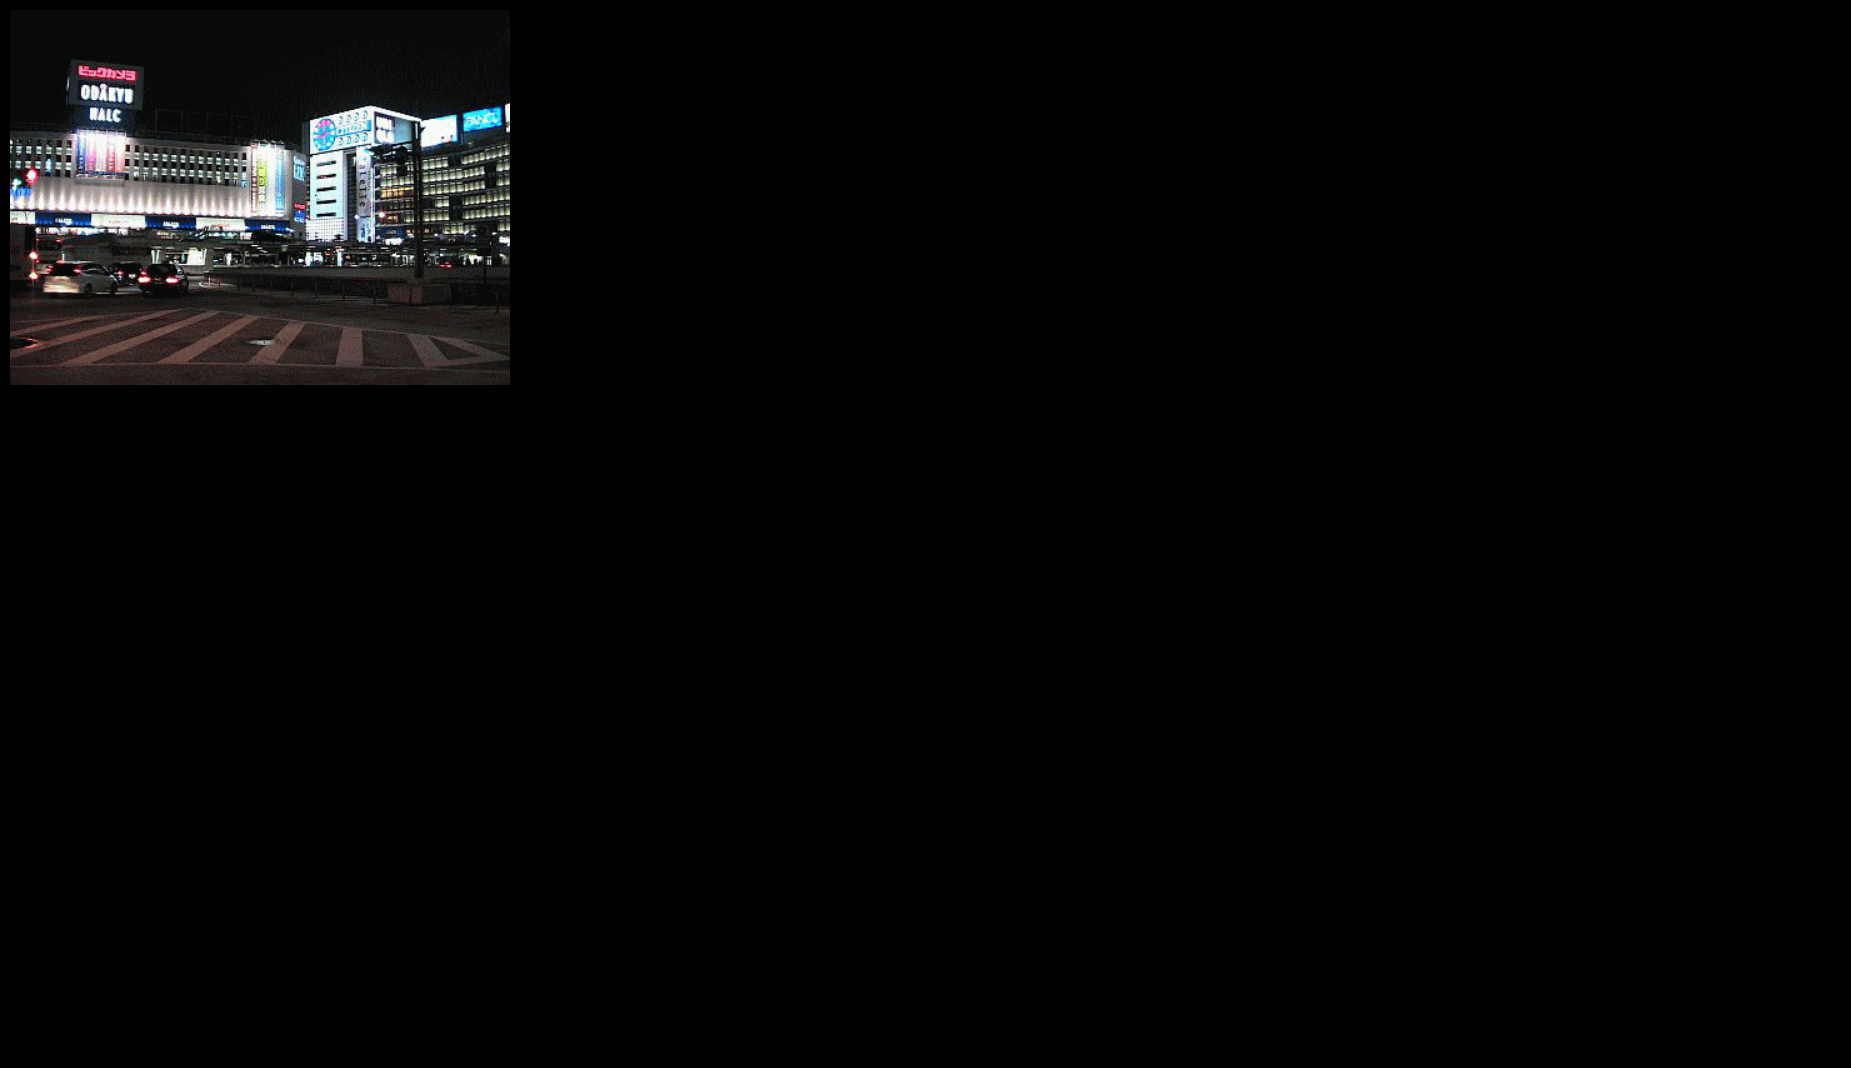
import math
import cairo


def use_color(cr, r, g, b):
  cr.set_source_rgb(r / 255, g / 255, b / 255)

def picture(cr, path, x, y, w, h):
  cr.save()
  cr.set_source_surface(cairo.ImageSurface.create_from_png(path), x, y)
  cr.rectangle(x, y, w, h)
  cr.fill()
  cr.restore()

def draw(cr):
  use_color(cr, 0, 0, 0)
  cr.paint()
  picture(cr, "img_01.png", 10, 10, 500, 375)


surface = cairo.ImageSurface(cairo.FORMAT_RGB24, 1851, 1068)
cr = cairo.Context(surface)
options = cairo.FontOptions()
options.set_hint_metrics(cairo.HINT_METRICS_OFF)
options.set_hint_style(cairo.HINT_STYLE_NONE)
cr.set_font_options(options)
cr.set_miter_limit(4)
draw(cr)
surface.write_to_png("out.png")
